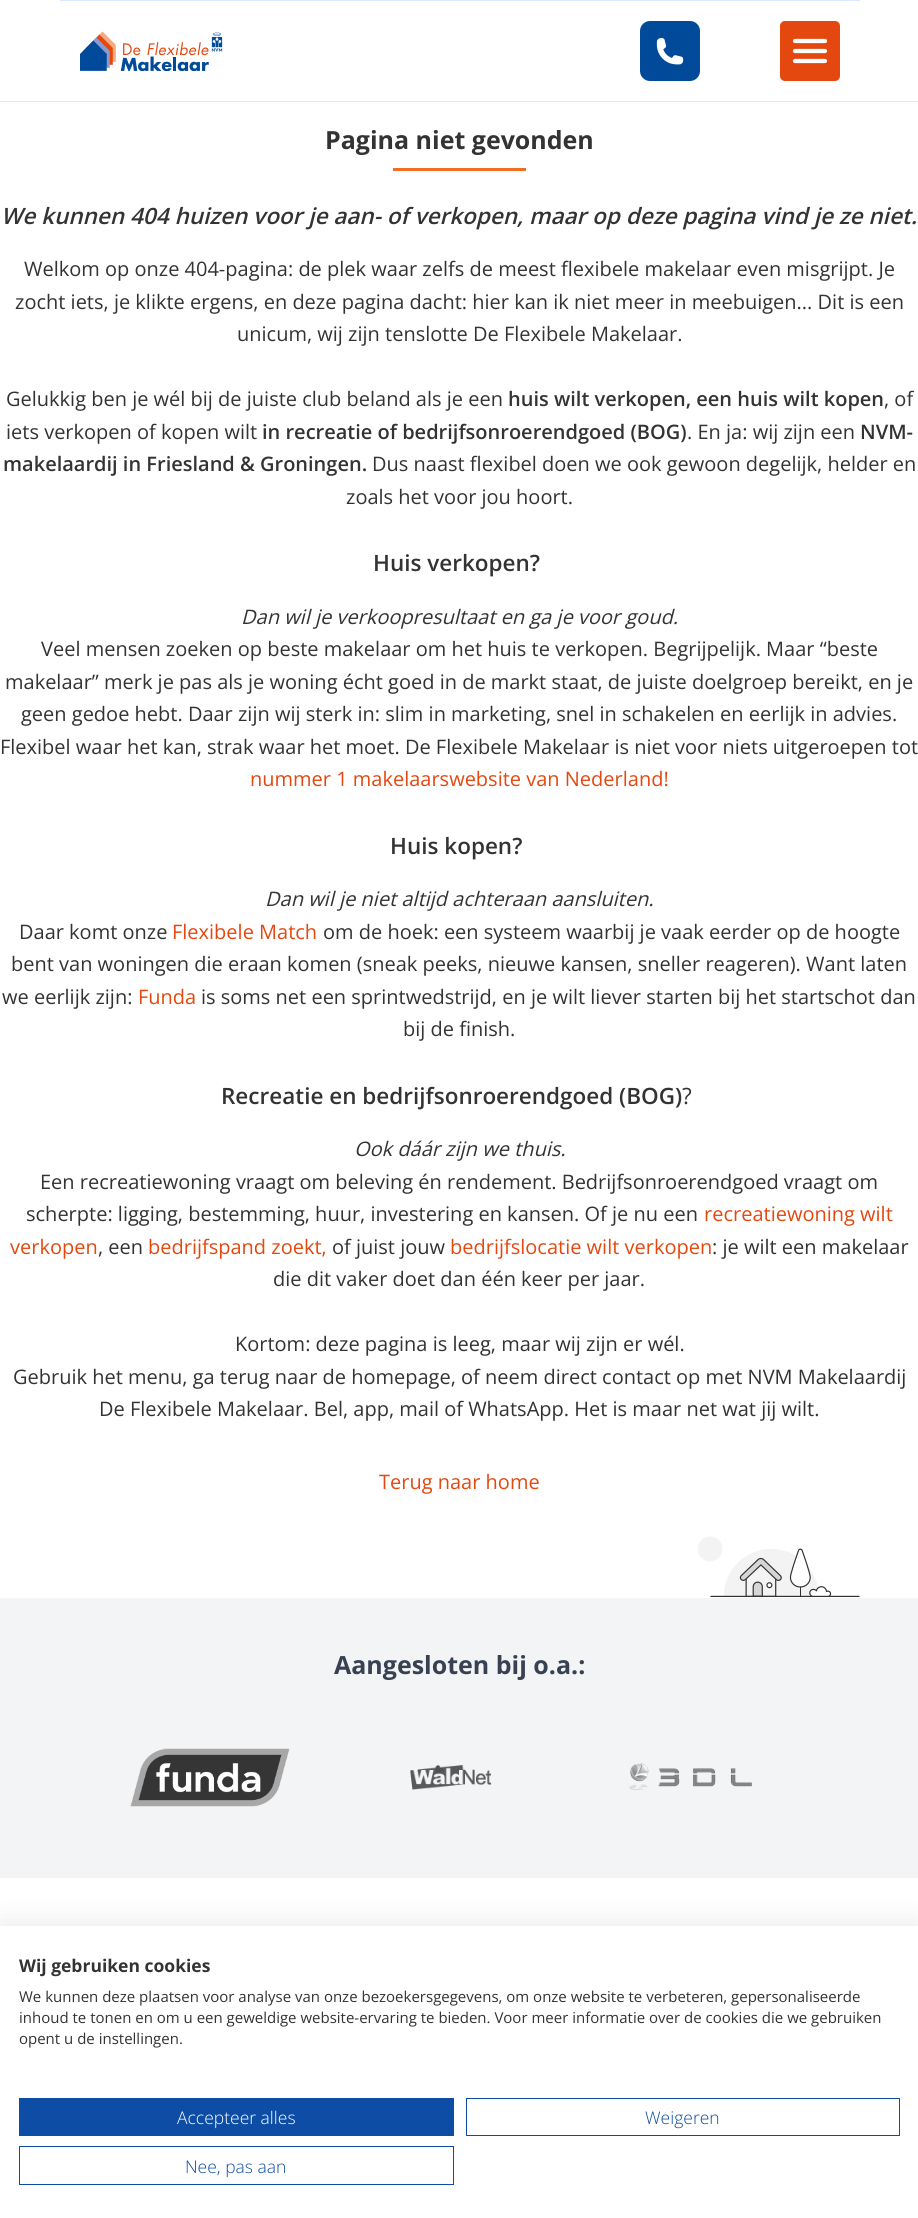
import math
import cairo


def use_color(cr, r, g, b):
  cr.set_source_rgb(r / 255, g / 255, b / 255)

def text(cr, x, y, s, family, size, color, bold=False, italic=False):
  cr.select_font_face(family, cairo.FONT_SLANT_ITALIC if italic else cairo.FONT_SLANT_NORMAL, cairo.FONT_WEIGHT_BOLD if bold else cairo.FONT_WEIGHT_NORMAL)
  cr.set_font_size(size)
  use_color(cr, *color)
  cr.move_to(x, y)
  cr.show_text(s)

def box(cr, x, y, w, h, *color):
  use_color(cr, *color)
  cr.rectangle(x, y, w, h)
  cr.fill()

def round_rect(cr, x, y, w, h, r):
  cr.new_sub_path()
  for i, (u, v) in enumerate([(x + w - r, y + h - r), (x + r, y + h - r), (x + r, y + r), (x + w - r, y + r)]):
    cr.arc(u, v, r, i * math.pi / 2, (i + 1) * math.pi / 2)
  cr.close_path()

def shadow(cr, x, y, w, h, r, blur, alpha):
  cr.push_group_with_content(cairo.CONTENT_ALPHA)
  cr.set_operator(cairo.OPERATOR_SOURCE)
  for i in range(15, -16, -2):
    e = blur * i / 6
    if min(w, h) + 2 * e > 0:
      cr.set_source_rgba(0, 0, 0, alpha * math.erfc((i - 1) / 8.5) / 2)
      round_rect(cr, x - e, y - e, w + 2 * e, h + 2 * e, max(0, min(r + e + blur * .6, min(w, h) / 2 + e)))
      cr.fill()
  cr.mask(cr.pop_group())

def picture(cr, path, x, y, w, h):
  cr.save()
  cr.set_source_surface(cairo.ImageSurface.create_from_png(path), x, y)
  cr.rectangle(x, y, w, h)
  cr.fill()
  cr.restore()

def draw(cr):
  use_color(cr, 255, 255, 255)
  cr.paint()
  box(cr, 60, 0, 800, 1, 219, 234, 254)
  picture(cr, "img_01.png", 80, 31, 143, 40)
  use_color(cr, 0, 74, 153)
  round_rect(cr, 640, 21, 60, 60, 10)
  cr.fill()
  picture(cr, "img_02.png", 656, 38, 28, 27)
  use_color(cr, 228, 72, 15)
  round_rect(cr, 780, 21, 60, 60, 5)
  cr.fill()
  cr.new_path()
  cr.move_to(795, 51)
  cr.line_to(825, 51)
  cr.move_to(795, 41)
  cr.line_to(825, 41)
  cr.move_to(795, 61)
  cr.line_to(825, 61)
  use_color(cr, 255, 255, 255)
  cr.set_line_width(4.2)
  cr.set_line_cap(cairo.LINE_CAP_ROUND)
  cr.set_line_join(cairo.LINE_JOIN_ROUND)
  cr.stroke()
  box(cr, 0, 101, 918, 1, 219, 234, 254)
  box(cr, 393, 168, 133, 3, 242, 109, 33)
  box(cr, 0, 1598, 918, 280, 243, 244, 246)
  picture(cr, "img_03.png", 698, 1536, 162, 61)
  picture(cr, "img_04.png", 130, 1748, 160, 59)
  picture(cr, "img_05.png", 410, 1765, 82, 25)
  picture(cr, "img_06.png", 629, 1763, 124, 27)
  use_color(cr, 0, 0, 0)
  shadow(cr, 0, 1926, 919, 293, 0, 15, 0.1)
  box(cr, 0, 1926, 918, 292, 255, 255, 255)
  box(cr, 19, 2098, 435, 38, 13, 77, 165)
  cr.rectangle(466.5, 2098.5, 433, 37)
  cr.set_line_width(1)
  cr.set_line_cap(cairo.LINE_CAP_BUTT)
  cr.set_line_join(cairo.LINE_JOIN_MITER)
  cr.stroke()
  cr.rectangle(19.5, 2146.5, 434, 38)
  cr.stroke()
  text(cr, 325, 149, "Pagina niet gevonden", "Open Sans", 25, (51, 51, 51), bold=True)
  text(cr, 1, 224, "We kunnen 404 huizen voor je aan- of verkopen, maar op deze pagina vind je ze niet.", "Open Sans SemiBold", 22.5, (51, 51, 51), italic=True)
  text(cr, 24, 276, "Welkom op onze 404-pagina: de plek waar zelfs de meest flexibele makelaar even misgrijpt. Je", "Open Sans", 20, (51, 51, 51))
  text(cr, 15, 309, "zocht iets, je klikte ergens, en deze pagina dacht: hier kan ik niet meer in meebuigen... Dit is een", "Open Sans", 20, (51, 51, 51))
  text(cr, 237, 341, "unicum, wij zijn tenslotte De Flexibele Makelaar.", "Open Sans", 20, (51, 51, 51))
  text(cr, 6, 406, "Gelukkig ben je wél bij de juiste club beland als je een", "Open Sans", 20, (51, 51, 51))
  text(cr, 508, 406, "huis wilt verkopen, een huis wilt kopen", "Open Sans SemiBold", 20, (51, 51, 51))
  text(cr, 884, 406, ", of", "Open Sans", 20, (51, 51, 51))
  text(cr, 6, 439, "iets verkopen of kopen wilt", "Open Sans", 20, (51, 51, 51))
  text(cr, 262, 439, "in recreatie of bedrijfsonroerendgoed (BOG)", "Open Sans SemiBold", 20, (51, 51, 51))
  text(cr, 687, 439, ". En ja: wij zijn een", "Open Sans", 20, (51, 51, 51))
  text(cr, 860, 439, "NVM-", "Open Sans SemiBold", 20, (51, 51, 51))
  text(cr, 3, 471, "makelaardij in Friesland & Groningen.", "Open Sans SemiBold", 20, (51, 51, 51))
  text(cr, 372, 471, "Dus naast flexibel doen we ook gewoon degelijk, helder en", "Open Sans", 20, (51, 51, 51))
  text(cr, 346, 504, "zoals het voor jou hoort.", "Open Sans", 20, (51, 51, 51))
  text(cr, 373, 571, "Huis verkopen?", "Open Sans SemiBold", 22.5, (51, 51, 51))
  text(cr, 241, 624, "Dan wil je verkoopresultaat en ga je voor goud.", "Open Sans", 20, (51, 51, 51), italic=True)
  text(cr, 41, 656, "Veel mensen zoeken op beste makelaar om het huis te verkopen. Begrijpelijk. Maar “beste", "Open Sans", 20, (51, 51, 51))
  text(cr, 5, 689, "makelaar” merk je pas als je woning écht goed in de markt staat, de juiste doelgroep bereikt, en je", "Open Sans", 20, (51, 51, 51))
  text(cr, 21, 721, "geen gedoe hebt. Daar zijn wij sterk in: slim in marketing, snel in schakelen en eerlijk in advies.", "Open Sans", 20, (51, 51, 51))
  text(cr, 0, 754, "Flexibel waar het kan, strak waar het moet. De Flexibele Makelaar is niet voor niets uitgeroepen tot", "Open Sans", 20, (51, 51, 51))
  text(cr, 250, 786, "nummer 1 makelaarswebsite van Nederland!", "Open Sans", 20, (228, 72, 15))
  text(cr, 390, 854, "Huis kopen?", "Open Sans SemiBold", 22.5, (51, 51, 51))
  text(cr, 265, 906, "Dan wil je niet altijd achteraan aansluiten.", "Open Sans", 20, (51, 51, 51), italic=True)
  text(cr, 19, 939, "Daar komt onze", "Open Sans", 20, (51, 51, 51))
  text(cr, 172, 939, "Flexibele Match", "Open Sans", 20, (228, 72, 15))
  text(cr, 323, 939, "om de hoek: een systeem waarbij je vaak eerder op de hoogte", "Open Sans", 20, (51, 51, 51))
  text(cr, 11, 971, "bent van woningen die eraan komen (sneak peeks, nieuwe kansen, sneller reageren). Want laten", "Open Sans", 20, (51, 51, 51))
  text(cr, 2, 1004, "we eerlijk zijn:", "Open Sans", 20, (51, 51, 51))
  text(cr, 138, 1004, "Funda", "Open Sans", 20, (228, 72, 15))
  text(cr, 201, 1004, "is soms net een sprintwedstrijd, en je wilt liever starten bij het startschot dan", "Open Sans", 20, (51, 51, 51))
  text(cr, 403, 1036, "bij de finish.", "Open Sans", 20, (51, 51, 51))
  text(cr, 221, 1104, "Recreatie en bedrijfsonroerendgoed (BOG)", "Open Sans SemiBold", 22.5, (51, 51, 51))
  text(cr, 682, 1104, "?", "Open Sans", 22.5, (51, 51, 51))
  text(cr, 354, 1156, "Ook dáár zijn we thuis.", "Open Sans", 20, (51, 51, 51), italic=True)
  text(cr, 40, 1189, "Een recreatiewoning vraagt om beleving én rendement. Bedrijfsonroerendgoed vraagt om", "Open Sans", 20, (51, 51, 51))
  text(cr, 26, 1221, "scherpte: ligging, bestemming, huur, investering en kansen. Of je nu een", "Open Sans", 20, (51, 51, 51))
  text(cr, 704, 1221, "recreatiewoning wilt", "Open Sans", 20, (228, 72, 15))
  text(cr, 10, 1254, "verkopen", "Open Sans", 20, (228, 72, 15))
  text(cr, 98, 1254, ", een", "Open Sans", 20, (51, 51, 51))
  text(cr, 148, 1254, "bedrijfspand zoekt,", "Open Sans", 20, (228, 72, 15))
  text(cr, 332, 1254, "of juist jouw", "Open Sans", 20, (51, 51, 51))
  text(cr, 450, 1254, "bedrijfslocatie wilt verkopen", "Open Sans", 20, (228, 72, 15))
  text(cr, 712, 1254, ": je wilt een makelaar", "Open Sans", 20, (51, 51, 51))
  text(cr, 273, 1286, "die dit vaker doet dan één keer per jaar.", "Open Sans", 20, (51, 51, 51))
  text(cr, 235, 1351, "Kortom: deze pagina is leeg, maar wij zijn er wél.", "Open Sans", 20, (51, 51, 51))
  text(cr, 13, 1384, "Gebruik het menu, ga terug naar de homepage, of neem direct contact op met NVM Makelaardij", "Open Sans", 20, (51, 51, 51))
  text(cr, 99, 1416, "De Flexibele Makelaar. Bel, app, mail of WhatsApp. Het is maar net wat jij wilt.", "Open Sans", 20, (51, 51, 51))
  text(cr, 379, 1489, "Terug naar home", "Open Sans", 20, (228, 72, 15))
  text(cr, 334, 1674, "Aangesloten bij o.a.:", "Open Sans", 25, (55, 65, 81), bold=True)
  text(cr, 19, 1972, "Wij gebruiken cookies", "Open Sans", 17.5, (51, 51, 51), bold=True)
  text(cr, 19, 2002, "We kunnen deze plaatsen voor analyse van onze bezoekersgegevens, om onze website te verbeteren, gepersonaliseerde", "Open Sans", 15, (51, 51, 51))
  text(cr, 19, 2023, "inhoud te tonen en om u een geweldige website-ervaring te bieden. Voor meer informatie over de cookies die we gebruiken", "Open Sans", 15, (51, 51, 51))
  text(cr, 19, 2044, "opent u de instellingen.", "Open Sans", 15, (51, 51, 51))
  text(cr, 177, 2124, "Accepteer alles", "Open Sans Light", 17.5, (255, 255, 255))
  text(cr, 645, 2124, "Weigeren", "Open Sans Light", 17.5, (13, 77, 165))
  text(cr, 185, 2173, "Nee, pas aan", "Open Sans Light", 17.5, (13, 77, 165))


surface = cairo.ImageSurface(cairo.FORMAT_RGB24, 918, 2218)
cr = cairo.Context(surface)
options = cairo.FontOptions()
options.set_hint_metrics(cairo.HINT_METRICS_OFF)
options.set_hint_style(cairo.HINT_STYLE_NONE)
cr.set_font_options(options)
cr.set_miter_limit(4)
draw(cr)
surface.write_to_png("out.png")
